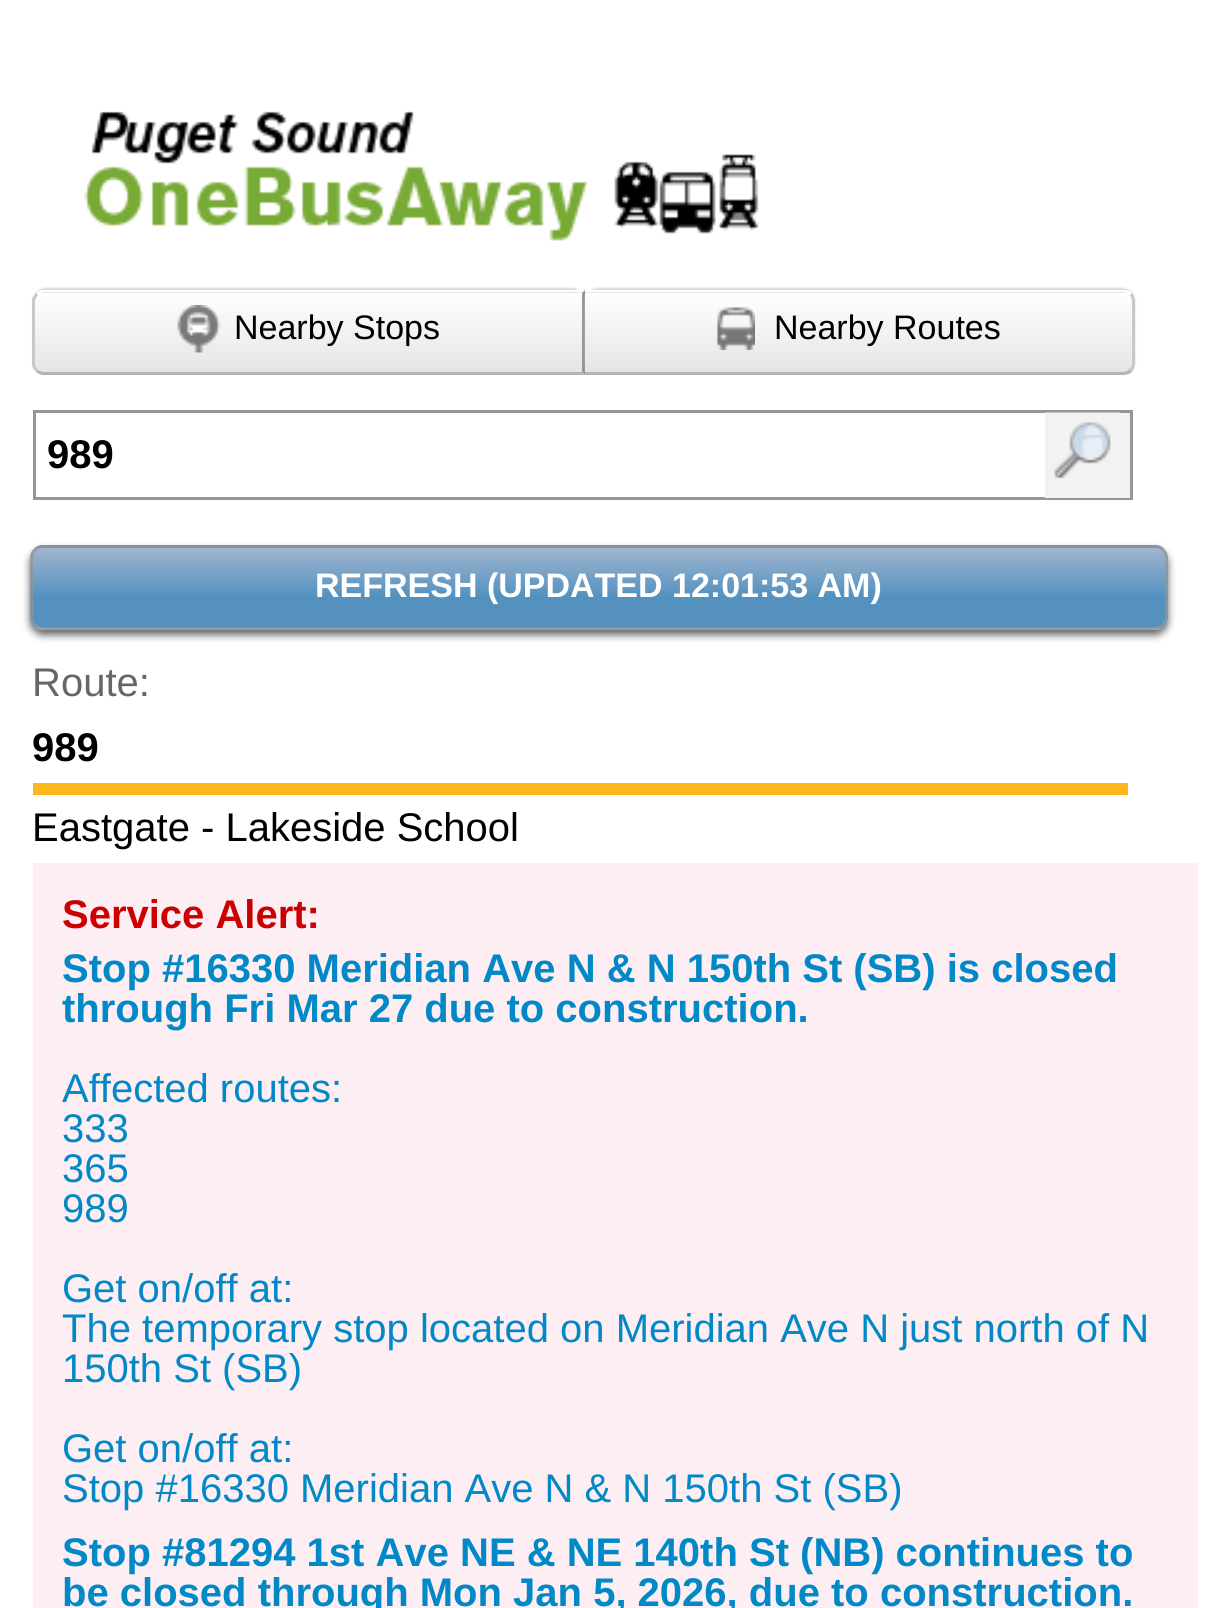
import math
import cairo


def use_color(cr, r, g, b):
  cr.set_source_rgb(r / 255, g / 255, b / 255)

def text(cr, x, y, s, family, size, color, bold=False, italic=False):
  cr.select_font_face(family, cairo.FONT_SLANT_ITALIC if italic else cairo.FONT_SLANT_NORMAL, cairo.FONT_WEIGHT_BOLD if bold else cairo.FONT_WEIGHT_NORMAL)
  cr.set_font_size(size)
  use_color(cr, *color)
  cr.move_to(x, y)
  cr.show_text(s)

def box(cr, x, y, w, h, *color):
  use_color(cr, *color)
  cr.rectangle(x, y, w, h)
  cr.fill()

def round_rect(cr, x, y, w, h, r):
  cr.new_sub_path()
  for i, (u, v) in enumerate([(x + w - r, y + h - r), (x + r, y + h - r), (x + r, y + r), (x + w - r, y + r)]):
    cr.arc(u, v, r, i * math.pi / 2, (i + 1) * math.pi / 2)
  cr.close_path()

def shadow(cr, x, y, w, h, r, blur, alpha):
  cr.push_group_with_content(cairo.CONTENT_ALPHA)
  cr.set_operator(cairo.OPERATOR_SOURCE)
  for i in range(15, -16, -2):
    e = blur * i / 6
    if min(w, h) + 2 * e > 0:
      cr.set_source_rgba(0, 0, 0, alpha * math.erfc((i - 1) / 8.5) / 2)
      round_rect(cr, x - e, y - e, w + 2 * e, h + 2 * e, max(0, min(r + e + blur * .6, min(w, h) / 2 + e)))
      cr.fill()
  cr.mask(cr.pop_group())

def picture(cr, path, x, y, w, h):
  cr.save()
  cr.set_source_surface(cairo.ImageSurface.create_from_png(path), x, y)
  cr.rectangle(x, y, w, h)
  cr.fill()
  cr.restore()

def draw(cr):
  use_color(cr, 255, 255, 255)
  cr.paint()
  picture(cr, "img_01.png", 84, 111, 675, 130)
  use_color(cr, 200, 200, 200)
  shadow(cr, 33, 288, 552, 85, 13, 1, 0.75)
  cr.save()
  cr.new_path()
  cr.move_to(46, 290)
  cr.line_to(585, 290)
  cr.line_to(585, 375)
  cr.line_to(46, 375)
  cr.curve_to(39, 375, 33, 369, 33, 362)
  cr.line_to(33, 303)
  cr.curve_to(33, 296, 39, 290, 46, 290)
  cr.close_path()
  cr.clip()
  gradient = cairo.LinearGradient(309, 212, 309, 293)
  gradient.add_color_stop_rgba(0, 1, 1, 1, 1)
  gradient.add_color_stop_rgba(1, 0.898, 0.898, 0.898, 1)
  cr.set_source(gradient)
  cr.rectangle(33, 290, 552, 3)
  cr.fill()
  gradient = cairo.LinearGradient(309, 292, 309, 373)
  gradient.add_color_stop_rgba(0, 1, 1, 1, 1)
  gradient.add_color_stop_rgba(1, 0.898, 0.898, 0.898, 1)
  cr.set_source(gradient)
  cr.rectangle(35, 293, 548, 80)
  cr.fill()
  cr.restore()
  use_color(cr, 255, 255, 255)
  cr.new_path()
  cr.move_to(44, 290)
  cr.curve_to(41, 290, 38, 291, 36, 293)
  cr.line_to(38, 295)
  cr.curve_to(39, 293, 42, 292, 44, 292)
  cr.line_to(582, 292)
  cr.line_to(582, 293)
  cr.line_to(585, 290)
  cr.close_path()
  cr.fill()
  use_color(cr, 150, 150, 150)
  cr.new_path()
  cr.move_to(585, 290)
  cr.line_to(582, 293)
  cr.line_to(582, 372)
  cr.line_to(585, 375)
  cr.close_path()
  cr.fill()
  use_color(cr, 180, 180, 180)
  cr.new_path()
  cr.move_to(585, 375)
  cr.line_to(582, 372)
  cr.line_to(44, 372)
  cr.curve_to(42, 372, 39, 371, 38, 370)
  cr.line_to(36, 372)
  cr.curve_to(38, 374, 41, 375, 44, 375)
  cr.close_path()
  cr.fill()
  use_color(cr, 200, 200, 200)
  cr.new_path()
  cr.move_to(32, 299)
  cr.curve_to(33, 297, 34, 295, 36, 293)
  cr.line_to(38, 295)
  cr.curve_to(36, 297, 35, 300, 35, 302)
  cr.line_to(35, 363)
  cr.curve_to(35, 366, 36, 368, 38, 370)
  cr.line_to(36, 372)
  cr.curve_to(34, 370, 33, 368, 32, 366)
  cr.close_path()
  cr.fill()
  picture(cr, "img_02.png", 177, 305, 44, 48)
  use_color(cr, 200, 200, 200)
  shadow(cr, 585, 288, 550, 85, 13, 1, 0.75)
  cr.save()
  cr.new_path()
  cr.move_to(585, 290)
  cr.line_to(1122, 290)
  cr.curve_to(1129, 290, 1135, 296, 1135, 303)
  cr.line_to(1135, 362)
  cr.curve_to(1135, 369, 1129, 375, 1122, 375)
  cr.line_to(585, 375)
  cr.close_path()
  cr.clip()
  gradient = cairo.LinearGradient(859, 212, 859, 293)
  gradient.add_color_stop_rgba(0, 1, 1, 1, 1)
  gradient.add_color_stop_rgba(1, 0.898, 0.898, 0.898, 1)
  cr.set_source(gradient)
  cr.rectangle(585, 290, 550, 3)
  cr.fill()
  gradient = cairo.LinearGradient(859, 292, 859, 373)
  gradient.add_color_stop_rgba(0, 1, 1, 1, 1)
  gradient.add_color_stop_rgba(1, 0.898, 0.898, 0.898, 1)
  cr.set_source(gradient)
  cr.rectangle(585, 293, 550, 79)
  cr.fill()
  cr.restore()
  use_color(cr, 255, 255, 255)
  cr.new_path()
  cr.move_to(585, 290)
  cr.line_to(585, 292)
  cr.line_to(1123, 292)
  cr.curve_to(1126, 292, 1128, 293, 1130, 295)
  cr.line_to(1132, 293)
  cr.curve_to(1130, 291, 1126, 290, 1123, 290)
  cr.close_path()
  cr.fill()
  use_color(cr, 200, 200, 200)
  cr.new_path()
  cr.move_to(1129, 369)
  cr.curve_to(1131, 368, 1132, 366, 1132, 363)
  cr.line_to(1132, 302)
  cr.curve_to(1132, 300, 1131, 297, 1130, 295)
  cr.line_to(1132, 293)
  cr.curve_to(1134, 296, 1135, 298, 1135, 302)
  cr.line_to(1135, 363)
  cr.curve_to(1135, 366, 1134, 370, 1132, 372)
  cr.close_path()
  cr.fill()
  use_color(cr, 180, 180, 180)
  cr.new_path()
  cr.move_to(585, 372)
  cr.line_to(585, 375)
  cr.line_to(1123, 375)
  cr.curve_to(1126, 375, 1130, 374, 1132, 372)
  cr.line_to(1129, 369)
  cr.curve_to(1128, 371, 1126, 372, 1123, 372)
  cr.close_path()
  cr.fill()
  picture(cr, "img_03.png", 717, 307, 38, 43)
  cr.rectangle(34.5, 411.5, 1097, 87)
  use_color(cr, 150, 150, 150)
  cr.set_line_width(3)
  cr.stroke()
  box(cr, 1045, 413, 85, 85, 242, 242, 242)
  picture(cr, "img_04.png", 1045, 412, 75, 67)
  cr.save()
  cr.set_fill_rule(cairo.FILL_RULE_EVEN_ODD)
  cr.new_path()
  cr.move_to(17, 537)
  cr.line_to(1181, 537)
  cr.line_to(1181, 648)
  cr.line_to(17, 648)
  cr.close_path()
  cr.move_to(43, 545)
  cr.line_to(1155, 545)
  cr.curve_to(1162, 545, 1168, 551, 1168, 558)
  cr.line_to(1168, 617)
  cr.curve_to(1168, 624, 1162, 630, 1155, 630)
  cr.line_to(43, 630)
  cr.curve_to(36, 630, 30, 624, 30, 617)
  cr.line_to(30, 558)
  cr.curve_to(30, 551, 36, 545, 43, 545)
  cr.close_path()
  cr.clip()
  use_color(cr, 100, 100, 100)
  shadow(cr, 30, 550, 1138, 85, 13, 4, 1)
  cr.restore()
  cr.save()
  round_rect(cr, 30, 545, 1138, 85, 13)
  cr.clip()
  gradient = cairo.LinearGradient(599, 467, 599, 548)
  gradient.add_color_stop_rgba(0, 0.459, 0.58, 0.729, 0.68)
  gradient.add_color_stop_rgba(0.61, 0, 0.357, 0.627, 0.67)
  cr.set_source(gradient)
  cr.rectangle(30, 545, 1138, 3)
  cr.fill()
  gradient = cairo.LinearGradient(599, 547, 599, 628)
  gradient.add_color_stop_rgba(0, 0.459, 0.58, 0.729, 0.68)
  gradient.add_color_stop_rgba(0.61, 0, 0.357, 0.627, 0.67)
  cr.set_source(gradient)
  cr.rectangle(30, 548, 1138, 80)
  cr.fill()
  gradient = cairo.LinearGradient(599, 627, 599, 708)
  gradient.add_color_stop_rgba(0, 0.459, 0.58, 0.729, 0.68)
  gradient.add_color_stop_rgba(0.61, 0, 0.357, 0.627, 0.67)
  cr.set_source(gradient)
  cr.rectangle(30, 628, 1138, 2)
  cr.fill()
  cr.restore()
  round_rect(cr, 31.5, 546.5, 1135, 82, 11.5)
  cr.set_source_rgba(0.588, 0.588, 0.588, 0.75)
  cr.stroke()
  box(cr, 33, 783, 1095, 12, 253, 183, 26)
  box(cr, 33, 863, 1165, 745, 253, 238, 244)
  text(cr, 234, 339, "Nearby Stops", "Liberation Sans", 34, (0, 0, 0))
  text(cr, 774, 339, "Nearby Routes", "Liberation Sans", 34, (0, 0, 0))
  text(cr, 47, 468, "989", "Liberation Sans", 40, (0, 0, 0), bold=True)
  text(cr, 315, 597, "REFRESH (UPDATED 12:01:53 AM)", "Liberation Sans", 34, (255, 255, 255), bold=True)
  text(cr, 32, 696, "Route:", "Liberation Sans", 40, (102, 102, 102))
  text(cr, 32, 761, "989", "Liberation Sans", 40, (0, 0, 0), bold=True)
  text(cr, 32, 841, "Eastgate - Lakeside School", "Liberation Sans", 40, (0, 0, 0))
  text(cr, 62, 928, "Service Alert:", "Liberation Sans", 40, (204, 0, 0), bold=True)
  text(cr, 62, 982, "Stop #16330 Meridian Ave N & N 150th St (SB) is closed", "Liberation Sans", 40, (1, 137, 199), bold=True)
  text(cr, 62, 1022, "through Fri Mar 27 due to construction.", "Liberation Sans", 40, (1, 137, 199), bold=True)
  text(cr, 62, 1102, "Affected routes:", "Liberation Sans", 40, (1, 137, 199))
  text(cr, 62, 1142, "333", "Liberation Sans", 40, (1, 137, 199))
  text(cr, 62, 1182, "365", "Liberation Sans", 40, (1, 137, 199))
  text(cr, 62, 1222, "989", "Liberation Sans", 40, (1, 137, 199))
  text(cr, 62, 1302, "Get on/off at:", "Liberation Sans", 40, (1, 137, 199))
  text(cr, 62, 1342, "The temporary stop located on Meridian Ave N just north of N", "Liberation Sans", 40, (1, 137, 199))
  text(cr, 62, 1382, "150th St (SB)", "Liberation Sans", 40, (1, 137, 199))
  text(cr, 62, 1462, "Get on/off at:", "Liberation Sans", 40, (1, 137, 199))
  text(cr, 62, 1502, "Stop #16330 Meridian Ave N & N 150th St (SB)", "Liberation Sans", 40, (1, 137, 199))
  text(cr, 62, 1566, "Stop #81294 1st Ave NE & NE 140th St (NB) continues to", "Liberation Sans", 40, (1, 137, 199), bold=True)
  text(cr, 62, 1606, "be closed through Mon Jan 5, 2026, due to construction.", "Liberation Sans", 40, (1, 137, 199), bold=True)


surface = cairo.ImageSurface(cairo.FORMAT_RGB24, 1230, 1608)
cr = cairo.Context(surface)
options = cairo.FontOptions()
options.set_hint_metrics(cairo.HINT_METRICS_OFF)
options.set_hint_style(cairo.HINT_STYLE_NONE)
cr.set_font_options(options)
cr.set_miter_limit(4)
draw(cr)
surface.write_to_png("out.png")
